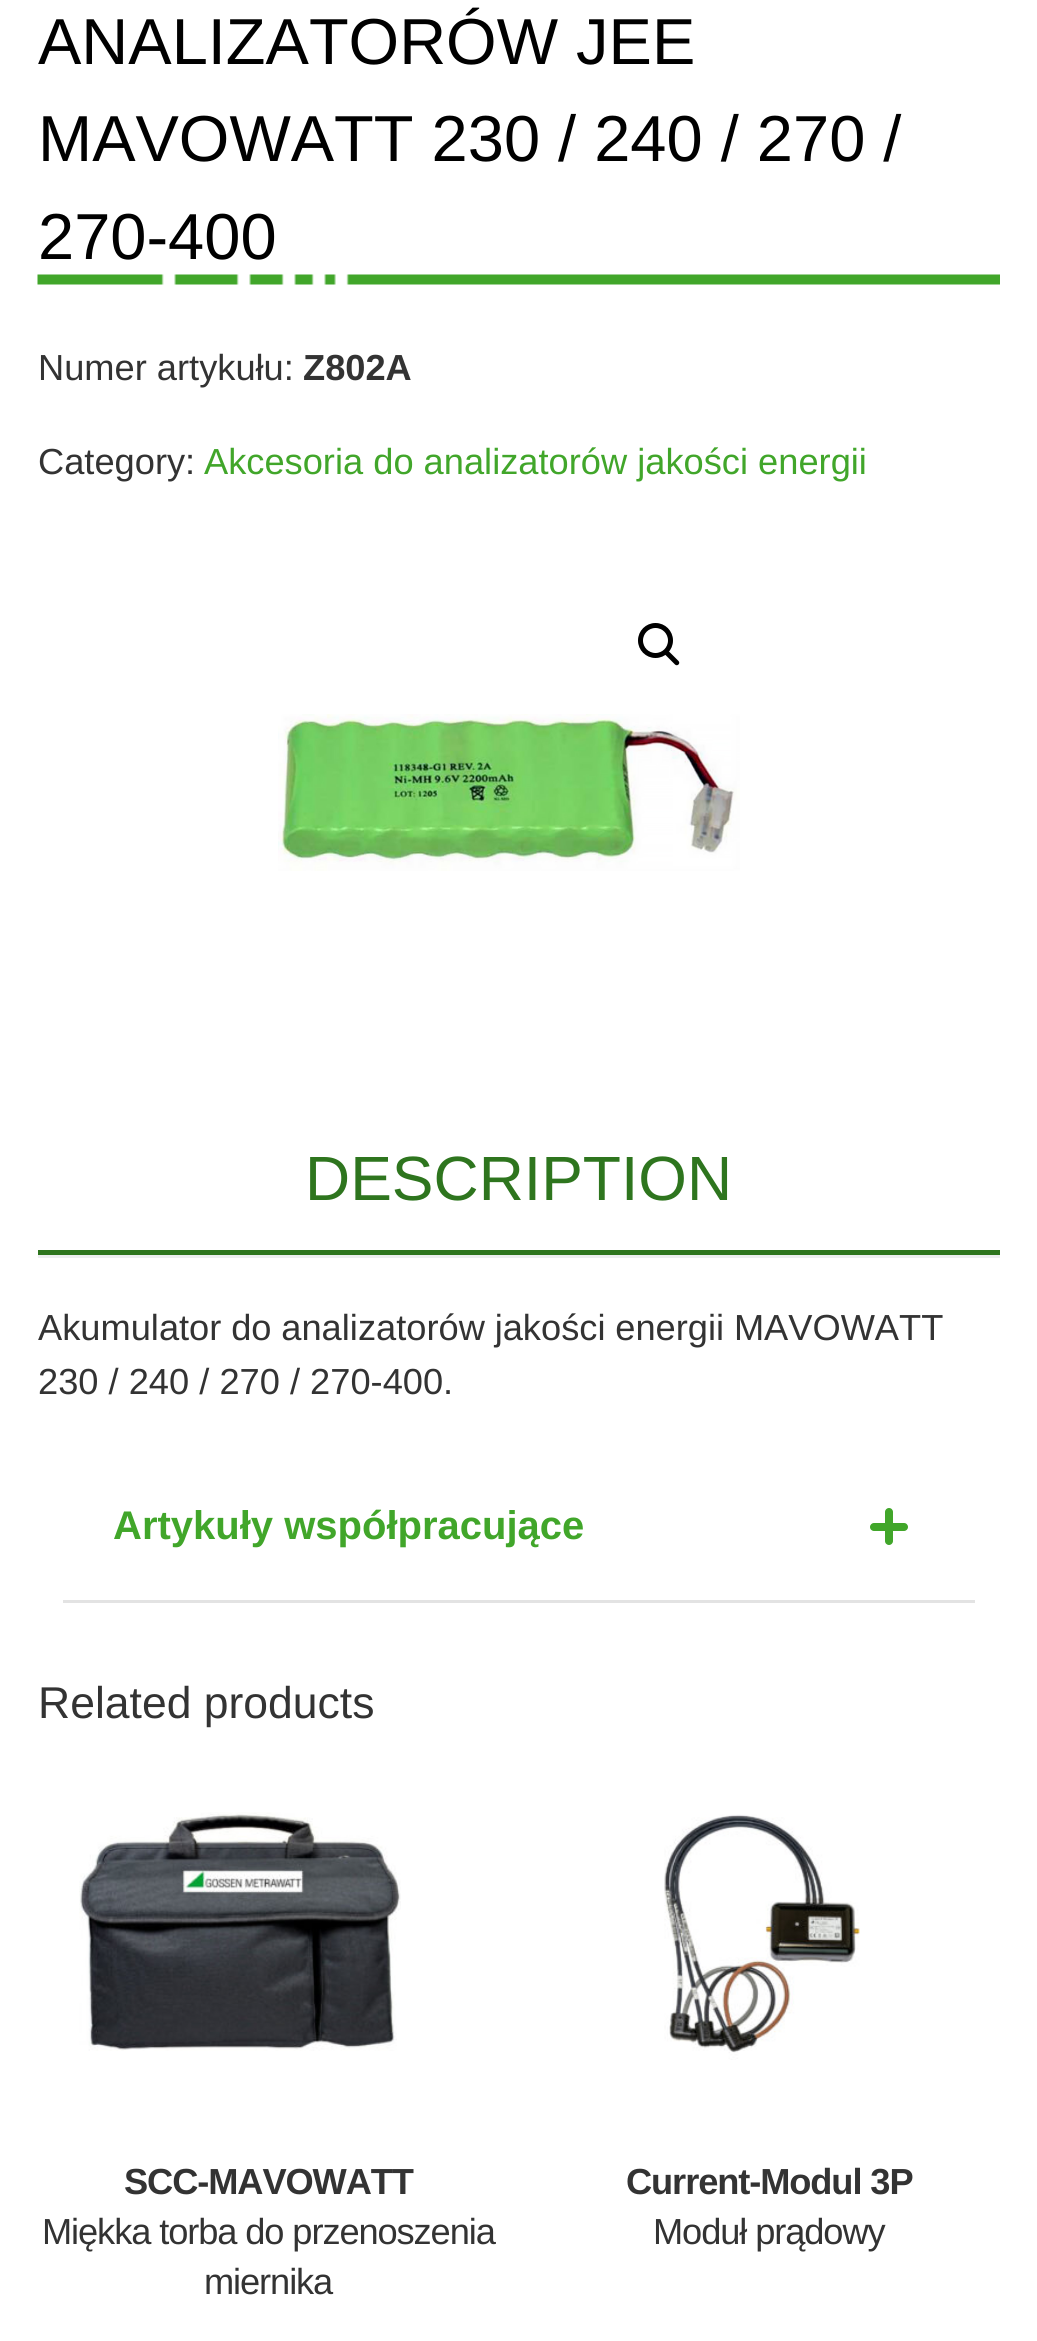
import math
import cairo


def use_color(cr, r, g, b):
  cr.set_source_rgb(r / 255, g / 255, b / 255)

def text(cr, x, y, s, family, size, color, bold=False, italic=False):
  cr.select_font_face(family, cairo.FONT_SLANT_ITALIC if italic else cairo.FONT_SLANT_NORMAL, cairo.FONT_WEIGHT_BOLD if bold else cairo.FONT_WEIGHT_NORMAL)
  cr.set_font_size(size)
  use_color(cr, *color)
  cr.move_to(x, y)
  cr.show_text(s)

def spaced_text(cr, x, y, s, letter, word):
  cr.move_to(x, y)
  for ch in s:
    cr.show_text(ch)
    cr.rel_move_to(letter + word * (ch == ' '), 0)

def box(cr, x, y, w, h, *color):
  use_color(cr, *color)
  cr.rectangle(x, y, w, h)
  cr.fill()

def round_rect(cr, x, y, w, h, r):
  cr.new_sub_path()
  for i, (u, v) in enumerate([(x + w - r, y + h - r), (x + r, y + h - r), (x + r, y + r), (x + w - r, y + r)]):
    cr.arc(u, v, r, i * math.pi / 2, (i + 1) * math.pi / 2)
  cr.close_path()

def picture(cr, path, x, y, w, h):
  cr.save()
  cr.set_source_surface(cairo.ImageSurface.create_from_png(path), x, y)
  cr.rectangle(x, y, w, h)
  cr.fill()
  cr.restore()

def draw(cr):
  use_color(cr, 255, 255, 255)
  cr.paint()
  picture(cr, "img_01.png", 37, 274, 963, 11)
  cr.arc(655.5, 640.5, 15, 0, 2 * math.pi)
  use_color(cr, 0, 0, 0)
  cr.set_line_width(5)
  cr.stroke()
  cr.new_path()
  cr.move_to(664.5, 650.5)
  cr.curve_to(665.5, 649.5, 667, 649.5, 668, 650.5)
  cr.line_to(678.5, 661)
  cr.curve_to(679.5, 662, 679.5, 663.5, 678.5, 664.5)
  cr.curve_to(677.5, 665.5, 676, 665.5, 675, 664.5)
  cr.line_to(664.5, 654)
  cr.curve_to(663.5, 653, 663.5, 651.5, 664.5, 650.5)
  cr.close_path()
  cr.fill()
  picture(cr, "img_02.png", 278, 714, 462, 157)
  box(cr, 38, 1255, 962, 3, 236, 238, 239)
  box(cr, 38, 1250, 962, 5, 46, 117, 30)
  box(cr, 63, 1600, 912, 3, 227, 227, 227)
  use_color(cr, 65, 166, 42)
  round_rect(cr, 885, 1508, 8, 37, 4)
  cr.fill()
  round_rect(cr, 870, 1523, 38, 8, 4)
  cr.fill()
  picture(cr, "img_03.png", 79, 1812, 322, 239)
  picture(cr, "img_04.png", 664, 1814, 196, 246)
  text(cr, 38, 64, "ANALIZATORÓW JEE", "Liberation Sans", 65, (0, 0, 0))
  text(cr, 38, 161, "MAVOWATT 230 / 240 / 270 /", "Liberation Sans", 65, (0, 0, 0))
  text(cr, 38, 259, "270-400", "Liberation Sans", 65, (0, 0, 0))
  text(cr, 38, 380, "Numer artykułu:", "Liberation Sans", 36.25, (51, 51, 51))
  text(cr, 303, 380, "Z802A", "Liberation Sans", 36.25, (51, 51, 51), bold=True)
  text(cr, 38, 474, "Category:", "Liberation Sans", 36.25, (51, 51, 51))
  text(cr, 204, 474, "Akcesoria do analizatorów jakości energii", "Liberation Sans", 36.25, (65, 166, 42))
  text(cr, 305, 1200, "DESCRIPTION", "Liberation Sans", 62.5, (46, 117, 30))
  cr.set_font_size(36.25)
  use_color(cr, 51, 51, 51)
  spaced_text(cr, 38, 1340, "Akumulator do analizatorów jakości energii MAVOWATT", 0, -0.25)
  text(cr, 38, 1394, "230 / 240 / 270 / 270-400.", "Liberation Sans", 36.25, (51, 51, 51))
  text(cr, 113, 1539, "Artykuły współpracujące", "Liberation Sans", 40, (65, 166, 42), bold=True)
  text(cr, 38, 1718, "Related products", "Liberation Sans", 44.5, (51, 51, 51))
  cr.select_font_face("Liberation Sans", cairo.FONT_SLANT_NORMAL, cairo.FONT_WEIGHT_BOLD)
  cr.set_font_size(36.25)
  spaced_text(cr, 124, 2194, "SCC-MAVOWATT", -1.1, 0)
  cr.select_font_face("Liberation Sans")
  spaced_text(cr, 42, 2244, "Miękka torba do przenoszenia", -1.1, 0)
  spaced_text(cr, 204, 2294, "miernika", -1.1, 0)
  cr.select_font_face("Liberation Sans", cairo.FONT_SLANT_NORMAL, cairo.FONT_WEIGHT_BOLD)
  spaced_text(cr, 626, 2194, "Current-Modul 3P", -1.1, 0)
  cr.select_font_face("Liberation Sans")
  spaced_text(cr, 653, 2244, "Moduł prądowy", -1.1, 0)


surface = cairo.ImageSurface(cairo.FORMAT_RGB24, 1037, 2341)
cr = cairo.Context(surface)
options = cairo.FontOptions()
options.set_hint_metrics(cairo.HINT_METRICS_OFF)
options.set_hint_style(cairo.HINT_STYLE_NONE)
cr.set_font_options(options)
cr.set_miter_limit(4)
draw(cr)
surface.write_to_png("out.png")
